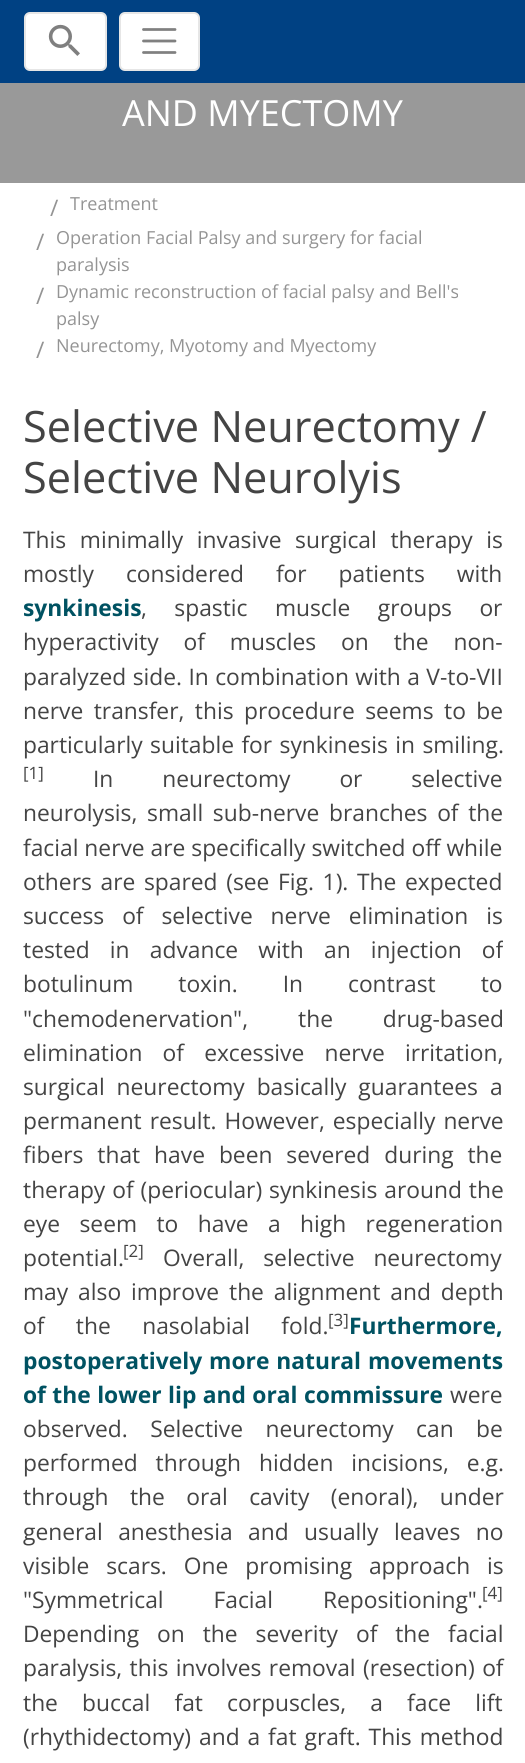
import math
import cairo


def use_color(cr, r, g, b):
  cr.set_source_rgb(r / 255, g / 255, b / 255)

def text(cr, x, y, s, family, size, color, bold=False, italic=False):
  cr.select_font_face(family, cairo.FONT_SLANT_ITALIC if italic else cairo.FONT_SLANT_NORMAL, cairo.FONT_WEIGHT_BOLD if bold else cairo.FONT_WEIGHT_NORMAL)
  cr.set_font_size(size)
  use_color(cr, *color)
  cr.move_to(x, y)
  cr.show_text(s)

def spaced_text(cr, x, y, s, letter, word):
  cr.move_to(x, y)
  for ch in s:
    cr.show_text(ch)
    cr.rel_move_to(letter + word * (ch == ' '), 0)

def box(cr, x, y, w, h, *color):
  use_color(cr, *color)
  cr.rectangle(x, y, w, h)
  cr.fill()

def round_rect(cr, x, y, w, h, r):
  cr.new_sub_path()
  for i, (u, v) in enumerate([(x + w - r, y + h - r), (x + r, y + h - r), (x + r, y + r), (x + w - r, y + r)]):
    cr.arc(u, v, r, i * math.pi / 2, (i + 1) * math.pi / 2)
  cr.close_path()

def picture(cr, path, x, y, w, h):
  cr.save()
  cr.set_source_surface(cairo.ImageSurface.create_from_png(path), x, y)
  cr.rectangle(x, y, w, h)
  cr.fill()
  cr.restore()

def draw(cr):
  use_color(cr, 255, 255, 255)
  cr.paint()
  box(cr, 0, 0, 525, 83, 0, 65, 131)
  use_color(cr, 255, 255, 255)
  round_rect(cr, 24, 12, 83, 59, 6)
  cr.fill()
  round_rect(cr, 25, 13, 81, 57, 5)
  cr.set_source_rgba(0, 0, 0, 0.1)
  cr.stroke()
  picture(cr, "img_01.png", 48, 24, 32, 32)
  use_color(cr, 255, 255, 255)
  round_rect(cr, 119, 12, 81, 59, 6)
  cr.fill()
  round_rect(cr, 120, 13, 79, 57, 5)
  cr.set_source_rgba(0, 0, 0, 0.1)
  cr.stroke()
  cr.new_path()
  cr.move_to(143.5, 29.5)
  cr.line_to(175, 29.5)
  cr.move_to(143.5, 41)
  cr.line_to(175, 41)
  cr.move_to(143.5, 52.5)
  cr.line_to(175, 52.5)
  use_color(cr, 128, 128, 128)
  cr.set_line_width(2.8)
  cr.set_line_cap(cairo.LINE_CAP_ROUND)
  cr.stroke()
  box(cr, 0, 83, 525, 100, 153, 153, 153)
  text(cr, 122, 126, "AND MYECTOMY", "Open Sans", 36, (255, 255, 255))
  text(cr, 50, 216, "/", "Open Sans", 22.8, (148, 148, 148))
  text(cr, 70, 210, "Treatment", "Open Sans", 18, (148, 148, 148))
  text(cr, 36, 250, "/", "Open Sans", 22.8, (148, 148, 148))
  text(cr, 56, 244, "Operation Facial Palsy and surgery for facial", "Open Sans", 18, (148, 148, 148))
  text(cr, 56, 271, "paralysis", "Open Sans", 18, (148, 148, 148))
  text(cr, 36, 304, "/", "Open Sans", 22.8, (148, 148, 148))
  text(cr, 56, 298, "Dynamic reconstruction of facial palsy and Bell's", "Open Sans", 18, (148, 148, 148))
  text(cr, 56, 325, "palsy", "Open Sans", 18, (148, 148, 148))
  text(cr, 36, 358, "/", "Open Sans", 22.8, (148, 148, 148))
  text(cr, 56, 352, "Neurectomy, Myotomy and Myectomy", "Open Sans", 18, (148, 148, 148))
  text(cr, 23, 442, "Selective Neurectomy /", "Open Sans", 43.25, (68, 68, 68))
  text(cr, 23, 493, "Selective Neurolyis", "Open Sans", 43.25, (68, 68, 68))
  cr.save()
  cr.rectangle(23, 399, 480, 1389)
  cr.clip()
  cr.set_font_size(22.8)
  spaced_text(cr, 23, 548, "This minimally invasive surgical therapy is", 0, 7.75)
  cr.restore()
  cr.set_font_size(22.8)
  spaced_text(cr, 23, 582, "mostly considered for patients with", 0, 26)
  text(cr, 23, 616, "synkinesis", "Open Sans", 22.8, (0, 82, 98), bold=True)
  cr.select_font_face("Open Sans")
  use_color(cr, 68, 68, 68)
  spaced_text(cr, 141, 616, ", spastic muscle groups or", 0, 21.5)
  spaced_text(cr, 23, 650, "hyperactivity of muscles on the non-", 0, 19)
  spaced_text(cr, 23, 685, "paralyzed side. In combination with a V-to-VII", 0, 0.5)
  spaced_text(cr, 23, 719, "nerve transfer, this procedure seems to be", 0, 4.5)
  spaced_text(cr, 23, 753, "particularly suitable for synkinesis in smiling.", 0, 1.5)
  text(cr, 23, 779, "[1]", "Open Sans", 17, (68, 68, 68))
  cr.set_font_size(22.8)
  spaced_text(cr, 93, 787, "In neurectomy or selective", 0, 43)
  spaced_text(cr, 23, 821, "neurolysis, small sub-nerve branches of the", 0, 3.75)
  text(cr, 23, 856, "facial nerve are specifically switched off while", "Open Sans", 22.8, (68, 68, 68))
  spaced_text(cr, 23, 890, "others are spared (see Fig. 1). The expected", 0, 2.75)
  spaced_text(cr, 23, 924, "success of selective nerve elimination is", 0, 12)
  cr.save()
  cr.rectangle(23, 399, 480, 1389)
  cr.clip()
  spaced_text(cr, 23, 958, "tested in advance with an injection of", 0, 14.25)
  cr.restore()
  spaced_text(cr, 23, 992, "botulinum toxin. In contrast to", 0, 39)
  spaced_text(cr, 23, 1027, "\"chemodenervation\", the drug-based", 0, 44)
  spaced_text(cr, 23, 1061, "elimination of excessive nerve irritation,", 0, 14.25)
  spaced_text(cr, 23, 1095, "surgical neurectomy basically guarantees a", 0, 6)
  spaced_text(cr, 23, 1129, "permanent result. However, especially nerve", 0, 2)
  spaced_text(cr, 23, 1163, "fibers that have been severed during the", 0, 8)
  spaced_text(cr, 23, 1198, "therapy of (periocular) synkinesis around the", 0, 1)
  spaced_text(cr, 23, 1232, "eye seem to have a high regeneration", 0, 13.5)
  text(cr, 23, 1266, "potential.", "Open Sans", 22.8, (68, 68, 68))
  text(cr, 123, 1257, "[2]", "Open Sans", 17, (68, 68, 68))
  cr.set_font_size(22.8)
  spaced_text(cr, 163, 1266, "Overall, selective neurectomy", 0, 13)
  spaced_text(cr, 23, 1300, "may also improve the alignment and depth", 0, 4)
  spaced_text(cr, 23, 1334, "of the nasolabial fold.", 0, 25.5)
  text(cr, 328, 1326, "[3]", "Open Sans", 17, (68, 68, 68))
  text(cr, 349, 1334, "Furthermore,", "Open Sans", 22.8, (0, 82, 98), bold=True)
  spaced_text(cr, 23, 1369, "postoperatively more natural movements", 0, 1)
  spaced_text(cr, 23, 1403, "of the lower lip and oral commissure", 0, 0.5)
  text(cr, 450, 1403, "were", "Open Sans", 22.8, (68, 68, 68))
  spaced_text(cr, 23, 1437, "observed. Selective neurectomy can be", 0, 16.5)
  spaced_text(cr, 23, 1471, "performed through hidden incisions, e.g.", 0, 12)
  spaced_text(cr, 23, 1505, "through the oral cavity (enoral), under", 0, 15.5)
  spaced_text(cr, 23, 1540, "general anesthesia and usually leaves no", 0, 9.5)
  spaced_text(cr, 23, 1574, "visible scars. One promising approach is", 0, 11)
  spaced_text(cr, 23, 1608, "\"Symmetrical Facial Repositioning\".", 0, 44)
  text(cr, 482, 1599, "[4]", "Open Sans", 17, (68, 68, 68))
  cr.set_font_size(22.8)
  spaced_text(cr, 23, 1642, "Depending on the severity of the facial", 0, 12)
  spaced_text(cr, 23, 1676, "paralysis, this involves removal (resection) of", 0, 1.5)
  spaced_text(cr, 23, 1711, "the buccal fat corpuscles, a face lift", 0, 18.25)
  spaced_text(cr, 23, 1745, "(rhythidectomy) and a fat graft. This method", 0, 2)


surface = cairo.ImageSurface(cairo.FORMAT_RGB24, 525, 1763)
cr = cairo.Context(surface)
options = cairo.FontOptions()
options.set_hint_metrics(cairo.HINT_METRICS_OFF)
options.set_hint_style(cairo.HINT_STYLE_NONE)
cr.set_font_options(options)
cr.set_miter_limit(4)
draw(cr)
surface.write_to_png("out.png")
